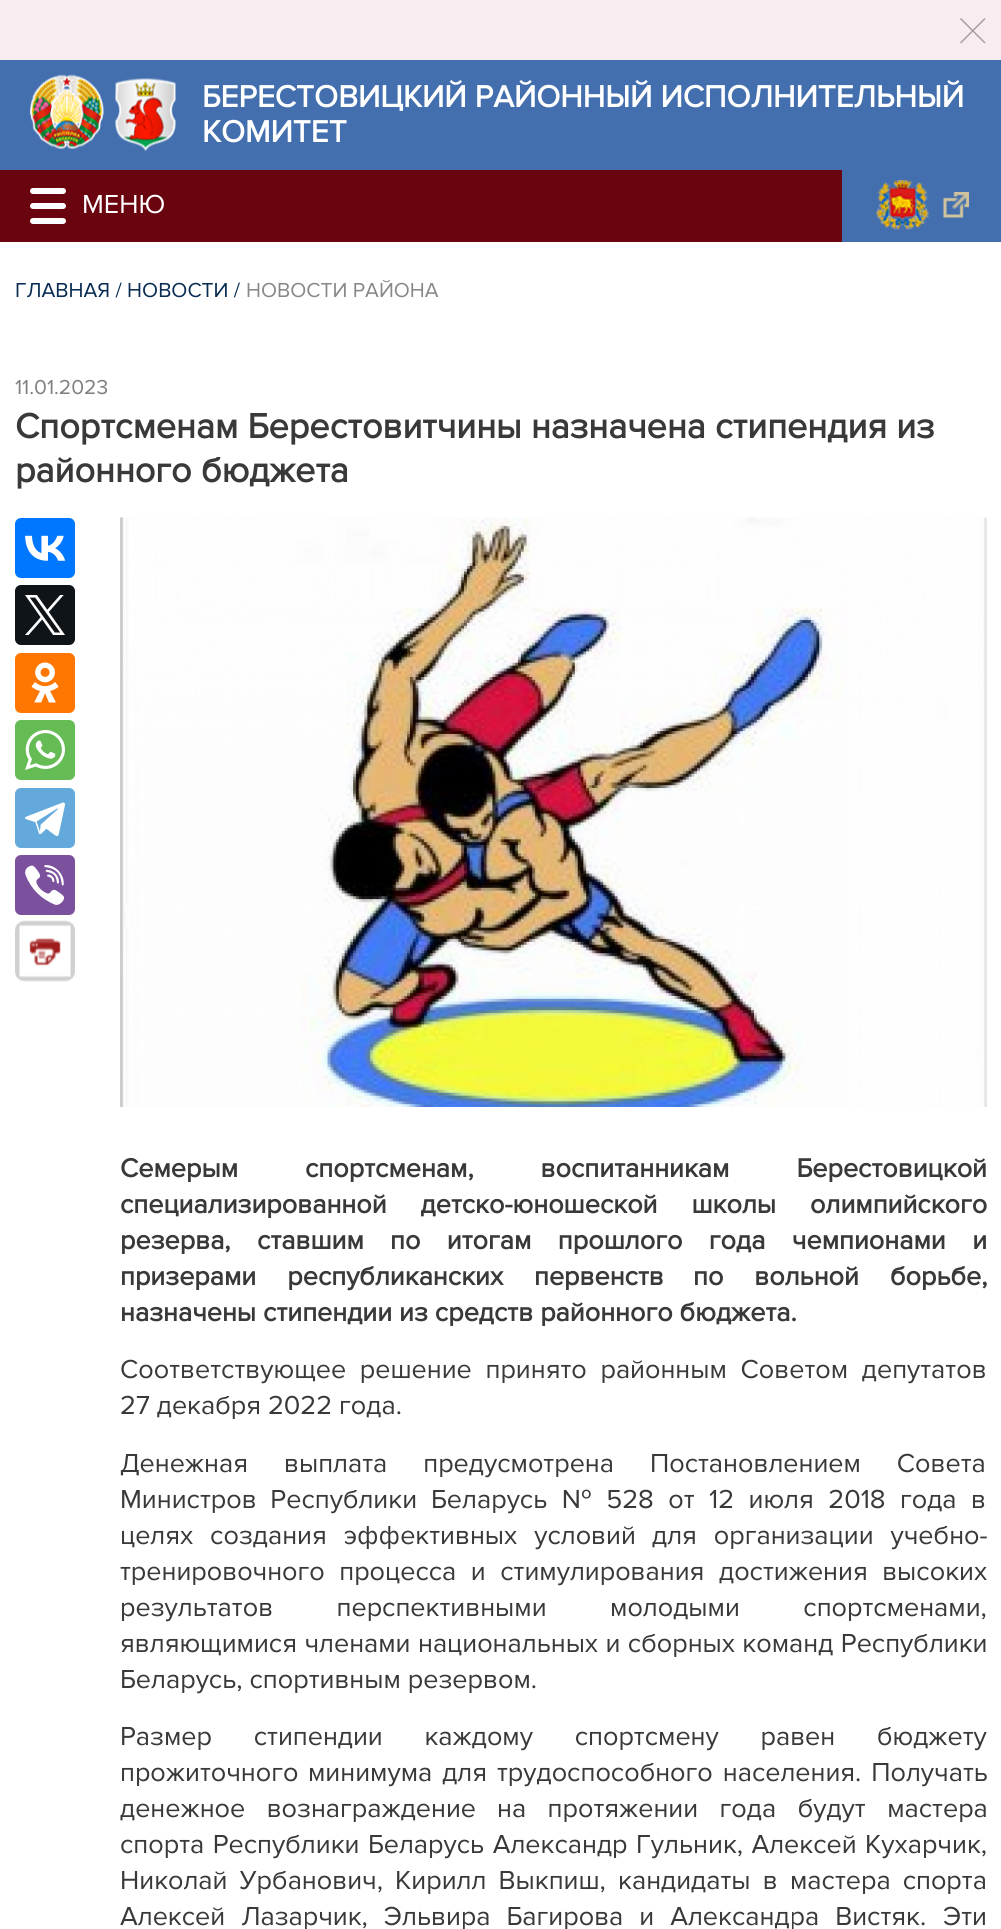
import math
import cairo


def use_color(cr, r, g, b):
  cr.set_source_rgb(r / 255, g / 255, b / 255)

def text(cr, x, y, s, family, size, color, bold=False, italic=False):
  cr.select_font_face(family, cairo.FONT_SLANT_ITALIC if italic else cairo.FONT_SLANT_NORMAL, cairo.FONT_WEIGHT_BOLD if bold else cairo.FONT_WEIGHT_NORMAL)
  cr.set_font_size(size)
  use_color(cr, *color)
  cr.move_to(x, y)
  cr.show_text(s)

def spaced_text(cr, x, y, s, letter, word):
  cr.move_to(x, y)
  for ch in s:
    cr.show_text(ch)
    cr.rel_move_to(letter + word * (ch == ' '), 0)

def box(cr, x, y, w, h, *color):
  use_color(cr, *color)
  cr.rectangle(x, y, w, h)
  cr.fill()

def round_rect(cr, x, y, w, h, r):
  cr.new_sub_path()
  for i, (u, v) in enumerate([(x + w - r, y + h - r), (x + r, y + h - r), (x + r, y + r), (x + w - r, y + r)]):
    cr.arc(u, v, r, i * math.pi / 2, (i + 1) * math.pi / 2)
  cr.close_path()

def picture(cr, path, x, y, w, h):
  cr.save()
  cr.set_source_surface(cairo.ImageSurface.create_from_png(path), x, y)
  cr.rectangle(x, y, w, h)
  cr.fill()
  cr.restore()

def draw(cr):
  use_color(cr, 255, 255, 255)
  cr.paint()
  box(cr, 0, 0, 1001, 60, 248, 236, 240)
  cr.new_path()
  cr.move_to(985, 43)
  cr.line_to(960.5, 18.5)
  cr.move_to(960.5, 43)
  cr.line_to(985, 18.5)
  use_color(cr, 164, 158, 160)
  cr.set_line_width(1.5)
  cr.stroke()
  box(cr, 0, 60, 1001, 110, 67, 111, 174)
  picture(cr, "img_01.png", 30, 74, 74, 75)
  picture(cr, "img_02.png", 115, 78, 61, 73)
  box(cr, 0, 170, 842, 72, 106, 5, 15)
  box(cr, 842, 170, 159, 72, 67, 111, 174)
  picture(cr, "img_03.png", 876, 180, 53, 50)
  picture(cr, "img_04.png", 943, 192, 26, 26)
  use_color(cr, 255, 255, 255)
  round_rect(cr, 30, 203, 36, 6, 3)
  cr.fill()
  round_rect(cr, 30, 188, 36, 6, 3)
  cr.fill()
  round_rect(cr, 30, 218, 36, 6, 3)
  cr.fill()
  use_color(cr, 0, 119, 255)
  round_rect(cr, 15, 518, 60, 60, 6)
  cr.fill()
  picture(cr, "img_05.png", 25, 535, 41, 26)
  use_color(cr, 15, 20, 25)
  round_rect(cr, 15, 585, 60, 60, 6)
  cr.fill()
  picture(cr, "img_06.png", 25, 595, 40, 40)
  use_color(cr, 255, 119, 0)
  round_rect(cr, 15, 653, 60, 60, 6)
  cr.fill()
  picture(cr, "img_07.png", 31, 662, 28, 41)
  use_color(cr, 101, 188, 84)
  round_rect(cr, 15, 720, 60, 60, 6)
  cr.fill()
  picture(cr, "img_08.png", 25, 730, 40, 40)
  use_color(cr, 100, 169, 220)
  round_rect(cr, 15, 788, 60, 60, 6)
  cr.fill()
  picture(cr, "img_09.png", 25, 802, 40, 34)
  use_color(cr, 123, 81, 157)
  round_rect(cr, 15, 855, 60, 60, 6)
  cr.fill()
  picture(cr, "img_10.png", 25, 865, 40, 40)
  picture(cr, "img_11.png", 15, 920, 60, 62)
  picture(cr, "img_12.png", 120, 517, 867, 590)
  text(cr, 202, 107, "БЕРЕСТОВИЦКИЙ РАЙОННЫЙ ИСПОЛНИТЕЛЬНЫЙ", "Proxima Nova", 31.5, (255, 255, 255), bold=True)
  text(cr, 202, 142, "КОМИТЕТ", "Proxima Nova", 31.5, (255, 255, 255), bold=True)
  text(cr, 82, 213, "МЕНЮ", "Proxima Nova", 27, (255, 255, 255))
  text(cr, 15, 297, "ГЛАВНАЯ / НОВОСТИ /", "Proxima Nova", 21, (8, 44, 82))
  text(cr, 246, 297, "НОВОСТИ РАЙОНА", "Proxima Nova", 21, (136, 136, 136))
  text(cr, 15, 394, "11.01.2023", "Proxima Nova", 21, (128, 128, 128))
  text(cr, 15, 438, "Спортсменам Берестовитчины назначена стипендия из", "Proxima Nova", 36, (57, 57, 57), bold=True)
  text(cr, 15, 482, "районного бюджета", "Proxima Nova", 36, (57, 57, 57), bold=True)
  cr.set_font_size(27)
  spaced_text(cr, 120, 1177, "Семерым спортсменам, воспитанникам Берестовицкой", 0, 60)
  spaced_text(cr, 120, 1213, "специализированной детско-юношеской школы олимпийского", 0, 27)
  spaced_text(cr, 120, 1249, "резерва, ставшим", 0, 19.5)
  spaced_text(cr, 390, 1249, "по итогам прошлого года чемпионами и", 0, 19.5)
  spaced_text(cr, 120, 1285, "призерами республиканских первенств", 0, 24)
  spaced_text(cr, 693, 1285, "по вольной борьбе,", 0, 24)
  text(cr, 120, 1321, "назначены стипендии из средств районного бюджета.", "Proxima Nova", 27, (57, 57, 57), bold=True)
  cr.select_font_face("Proxima Nova")
  spaced_text(cr, 120, 1378, "Соответствующее решение принято районным Советом депутатов", 0, 6.75)
  text(cr, 120, 1414, "27 декабря 2022 года.", "Proxima Nova", 27, (57, 57, 57))
  text(cr, 120, 1472, "Денежная", "Proxima Nova", 27, (57, 57, 57))
  spaced_text(cr, 284, 1472, "выплата предусмотрена Постановлением Совета", 0, 29)
  spaced_text(cr, 120, 1508, "Министров Республики", 0, 6.75)
  spaced_text(cr, 431, 1508, "Беларусь № 528 от 12 июля 2018 года в", 0, 7.5)
  spaced_text(cr, 120, 1544, "целях создания эффективных условий", 0, 10)
  spaced_text(cr, 652, 1544, "для организации учебно-", 0, 10)
  spaced_text(cr, 120, 1580, "тренировочного процесса и стимулирования", 0, 7.5)
  spaced_text(cr, 719, 1580, "достижения высоких", 0, 7.5)
  spaced_text(cr, 120, 1616, "результатов перспективными молодыми спортсменами,", 0, 56.5)
  spaced_text(cr, 120, 1652, "являющимися членами национальных и сборных команд Республики", 0, 0.5)
  text(cr, 120, 1688, "Беларусь, спортивным резервом.", "Proxima Nova", 27, (57, 57, 57))
  spaced_text(cr, 120, 1745, "Размер стипендии каждому спортсмену равен бюджету", 0, 34.75)
  text(cr, 120, 1781, "прожиточного", "Proxima Nova", 27, (57, 57, 57))
  spaced_text(cr, 308, 1781, "минимума для трудоспособного населения. Получать", 0, 3)
  spaced_text(cr, 120, 1817, "денежное вознаграждение", 0, 14.5)
  spaced_text(cr, 497, 1817, "на протяжении года будут мастера", 0, 14.5)
  spaced_text(cr, 120, 1853, "спорта Республики Беларусь Александр", 0, 1.5)
  spaced_text(cr, 636, 1853, "Гульник, Алексей Кухарчик,", 0, 1.5)
  spaced_text(cr, 120, 1889, "Николай Урбанович, Кирилл Выкпиш, кандидаты в", 0, 5.25)
  spaced_text(cr, 790, 1889, "мастера спорта", 0, 5)
  spaced_text(cr, 120, 1925, "Алексей Лазарчик, Эльвира Багирова и Александра Вистяк.", 0, 9)
  text(cr, 943, 1925, "Эти", "Proxima Nova", 27, (57, 57, 57))


surface = cairo.ImageSurface(cairo.FORMAT_RGB24, 1001, 1929)
cr = cairo.Context(surface)
options = cairo.FontOptions()
options.set_hint_metrics(cairo.HINT_METRICS_OFF)
options.set_hint_style(cairo.HINT_STYLE_NONE)
cr.set_font_options(options)
cr.set_miter_limit(4)
draw(cr)
surface.write_to_png("out.png")
